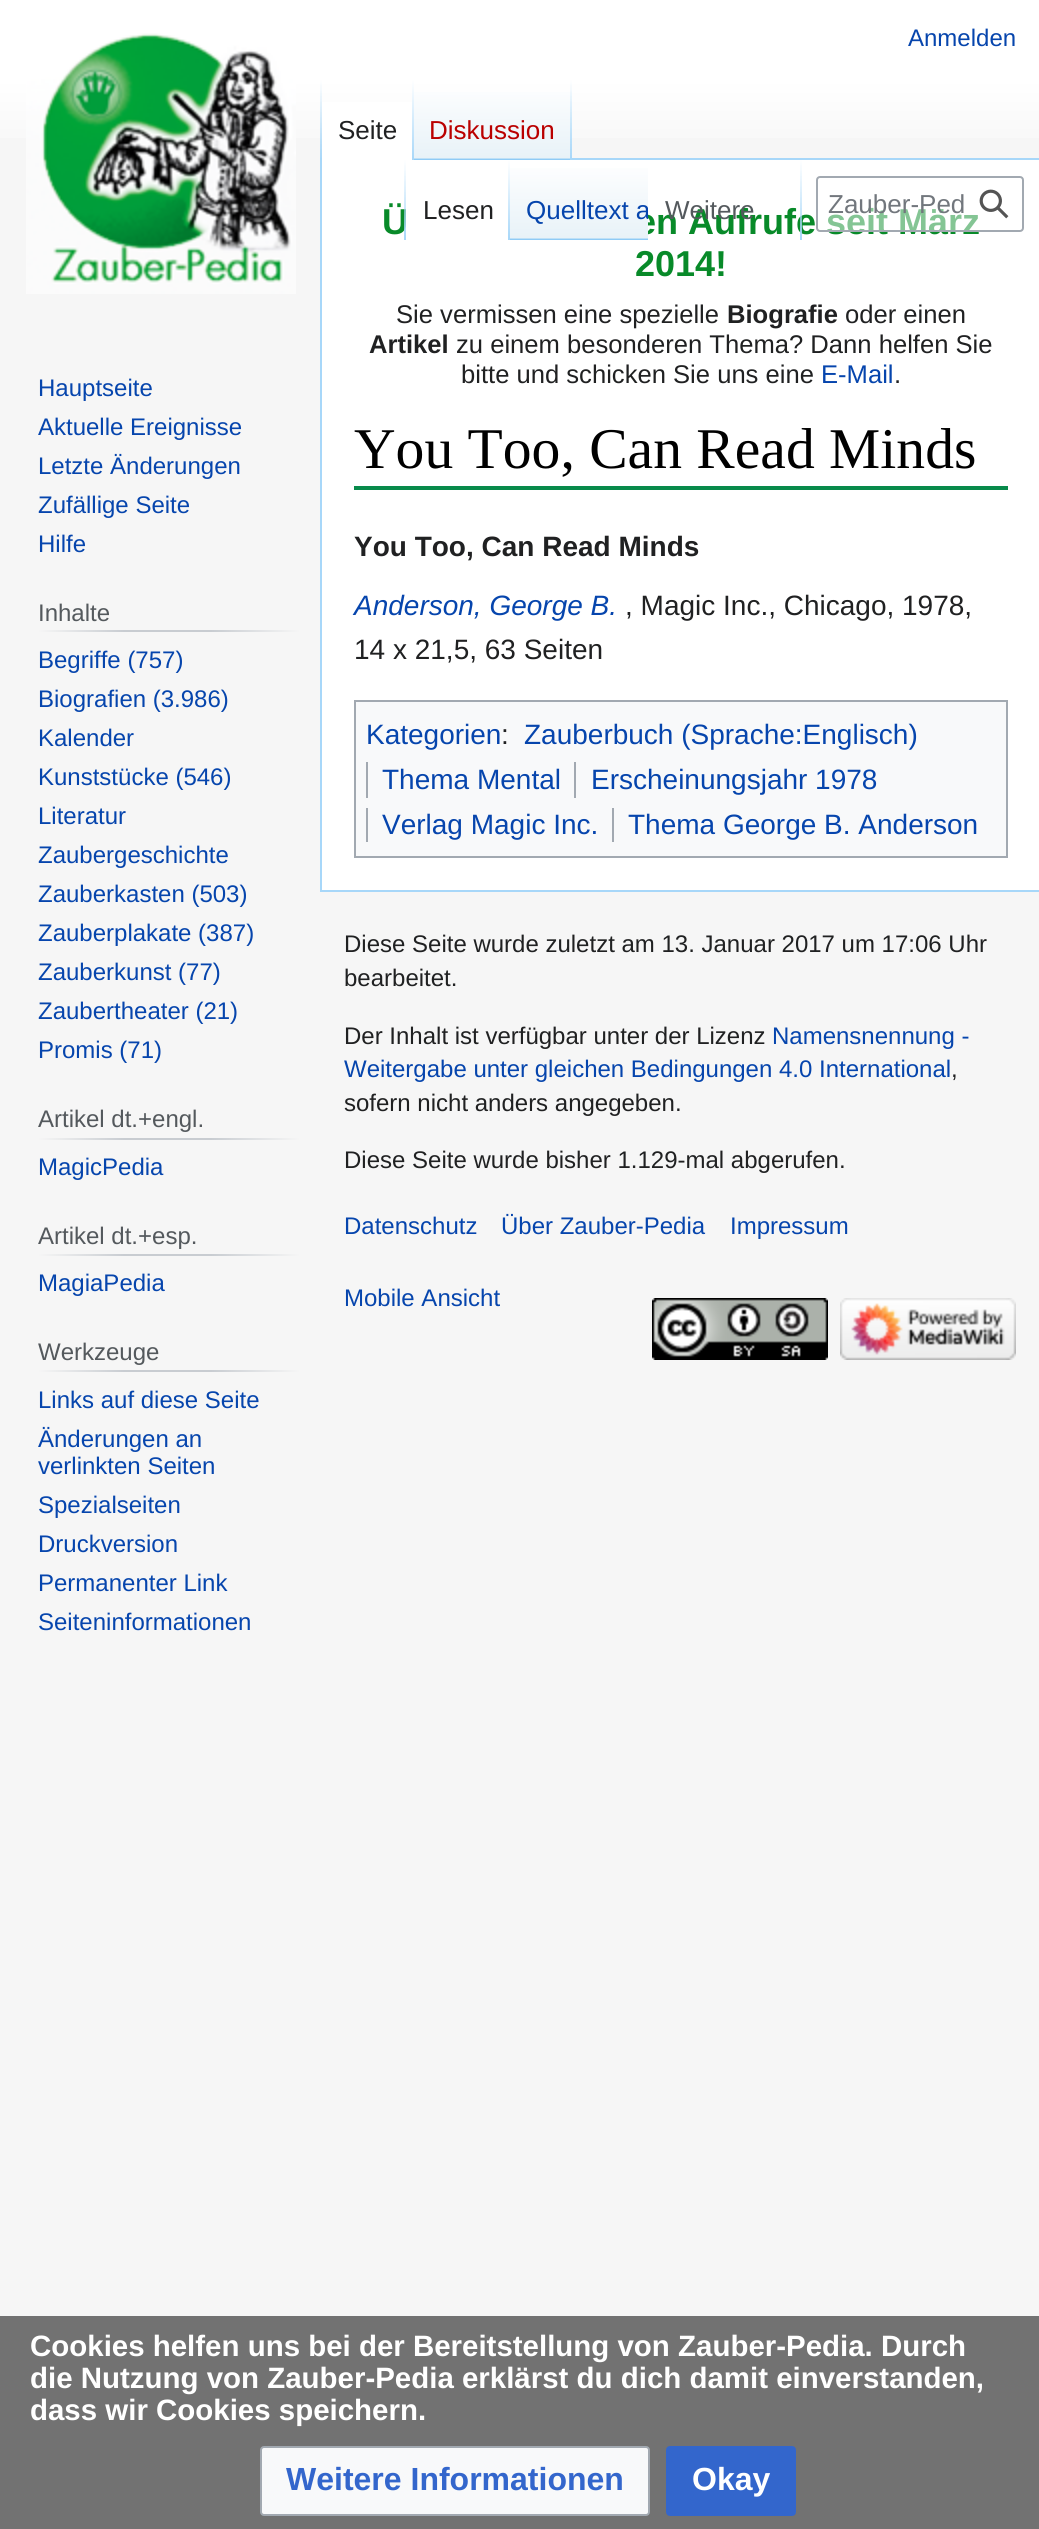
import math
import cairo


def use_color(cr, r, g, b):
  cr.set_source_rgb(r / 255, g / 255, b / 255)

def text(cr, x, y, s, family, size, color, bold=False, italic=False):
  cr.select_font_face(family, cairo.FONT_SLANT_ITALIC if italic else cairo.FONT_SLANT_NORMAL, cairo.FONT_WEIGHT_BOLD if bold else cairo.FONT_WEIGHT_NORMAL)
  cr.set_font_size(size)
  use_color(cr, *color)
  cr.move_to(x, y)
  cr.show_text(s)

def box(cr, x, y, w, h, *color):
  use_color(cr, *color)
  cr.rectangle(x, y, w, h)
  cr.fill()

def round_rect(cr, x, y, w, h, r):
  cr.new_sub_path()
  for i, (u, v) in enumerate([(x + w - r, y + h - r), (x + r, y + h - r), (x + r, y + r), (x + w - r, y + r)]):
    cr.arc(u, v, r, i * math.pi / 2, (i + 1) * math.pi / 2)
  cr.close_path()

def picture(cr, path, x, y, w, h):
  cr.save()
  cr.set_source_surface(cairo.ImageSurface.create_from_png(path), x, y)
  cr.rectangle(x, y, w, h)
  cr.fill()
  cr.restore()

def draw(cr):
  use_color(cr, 246, 246, 246)
  cr.paint()
  gradient = cairo.LinearGradient(520, 0, 520, 160)
  gradient.add_color_stop_rgba(0.5, 1, 1, 1, 1)
  gradient.add_color_stop_rgba(1, 0.965, 0.965, 0.965, 1)
  cr.set_source(gradient)
  cr.rectangle(0, 0, 1039, 138)
  cr.fill()
  box(cr, 320, 890, 719, 2, 167, 215, 249)
  box(cr, 320, 158, 2, 734, 167, 215, 249)
  gradient = cairo.LinearGradient(321, 80, 321, 160)
  gradient.add_color_stop_rgba(0, 0.655, 0.843, 0.976, 0)
  gradient.add_color_stop_rgba(1, 0.655, 0.843, 0.976, 1)
  cr.set_source(gradient)
  cr.rectangle(320, 80, 2, 80)
  cr.fill()
  box(cr, 322, 102, 90, 58, 255, 255, 255)
  gradient = cairo.LinearGradient(413, 80, 413, 160)
  gradient.add_color_stop_rgba(0, 1, 1, 1, 1)
  gradient.add_color_stop_rgba(1, 0.655, 0.843, 0.976, 1)
  cr.set_source(gradient)
  cr.rectangle(412, 80, 2, 80)
  cr.fill()
  gradient = cairo.LinearGradient(493, 160, 493, 80)
  gradient.add_color_stop_rgba(0, 0.467, 0.757, 0.965, 1)
  gradient.add_color_stop_rgba(0.03, 0.91, 0.949, 0.973, 1)
  gradient.add_color_stop_rgba(1, 1, 1, 1, 1)
  cr.set_source(gradient)
  cr.rectangle(414, 92, 158, 68)
  cr.fill()
  gradient = cairo.LinearGradient(571, 80, 571, 160)
  gradient.add_color_stop_rgba(0, 0.655, 0.843, 0.976, 0)
  gradient.add_color_stop_rgba(1, 0.655, 0.843, 0.976, 1)
  cr.set_source(gradient)
  cr.rectangle(570, 80, 2, 80)
  cr.fill()
  box(cr, 322, 160, 717, 730, 255, 255, 255)
  gradient = cairo.LinearGradient(509, 160, 509, 240)
  gradient.add_color_stop_rgba(0, 1, 1, 1, 1)
  gradient.add_color_stop_rgba(1, 0.655, 0.843, 0.976, 1)
  cr.set_source(gradient)
  cr.rectangle(508, 160, 2, 80)
  cr.fill()
  picture(cr, "img_02.png", 26, 33, 270, 261)
  gradient = cairo.LinearGradient(38, 631, 300, 631)
  gradient.add_color_stop_rgba(0, 0.965, 0.965, 0.965, 1)
  gradient.add_color_stop_rgba(0.33, 0.784, 0.8, 0.82, 1)
  gradient.add_color_stop_rgba(0.66, 0.784, 0.8, 0.82, 1)
  gradient.add_color_stop_rgba(1, 0.965, 0.965, 0.965, 1)
  cr.set_source(gradient)
  cr.rectangle(38, 630, 262, 2)
  cr.fill()
  gradient = cairo.LinearGradient(38, 1139, 300, 1139)
  gradient.add_color_stop_rgba(0, 0.965, 0.965, 0.965, 1)
  gradient.add_color_stop_rgba(0.33, 0.784, 0.8, 0.82, 1)
  gradient.add_color_stop_rgba(0.66, 0.784, 0.8, 0.82, 1)
  gradient.add_color_stop_rgba(1, 0.965, 0.965, 0.965, 1)
  cr.set_source(gradient)
  cr.rectangle(38, 1138, 262, 2)
  cr.fill()
  gradient = cairo.LinearGradient(38, 1255, 300, 1255)
  gradient.add_color_stop_rgba(0, 0.965, 0.965, 0.965, 1)
  gradient.add_color_stop_rgba(0.33, 0.784, 0.8, 0.82, 1)
  gradient.add_color_stop_rgba(0.66, 0.784, 0.8, 0.82, 1)
  gradient.add_color_stop_rgba(1, 0.965, 0.965, 0.965, 1)
  cr.set_source(gradient)
  cr.rectangle(38, 1254, 262, 2)
  cr.fill()
  gradient = cairo.LinearGradient(38, 1371, 300, 1371)
  gradient.add_color_stop_rgba(0, 0.965, 0.965, 0.965, 1)
  gradient.add_color_stop_rgba(0.33, 0.784, 0.8, 0.82, 1)
  gradient.add_color_stop_rgba(0.66, 0.784, 0.8, 0.82, 1)
  gradient.add_color_stop_rgba(1, 0.965, 0.965, 0.965, 1)
  cr.set_source(gradient)
  cr.rectangle(38, 1370, 262, 2)
  cr.fill()
  box(cr, 572, 158, 467, 2, 167, 215, 249)
  box(cr, 354, 486, 654, 4, 8, 138, 75)
  use_color(cr, 248, 249, 250)
  cr.rectangle(355, 701, 652, 156)
  cr.fill_preserve()
  use_color(cr, 162, 169, 177)
  cr.stroke()
  box(cr, 366, 762, 2, 36, 162, 169, 177)
  box(cr, 574, 762, 2, 36, 162, 169, 177)
  box(cr, 366, 808, 2, 34, 162, 169, 177)
  box(cr, 612, 808, 2, 34, 162, 169, 177)
  picture(cr, "img_03.png", 652, 1298, 176, 62)
  picture(cr, "img_04.png", 840, 1298, 176, 62)
  box(cr, 0, 2316, 1039, 213, 114, 114, 114)
  use_color(cr, 248, 249, 250)
  round_rect(cr, 261, 2447, 388, 68, 3)
  cr.fill_preserve()
  use_color(cr, 162, 169, 177)
  cr.stroke()
  use_color(cr, 51, 102, 204)
  round_rect(cr, 667, 2447, 128, 68, 3)
  cr.fill_preserve()
  cr.stroke()
  text(cr, 908, 46, "Anmelden", "Liberation Sans", 24, (6, 69, 173))
  text(cr, 338, 139, "Seite", "Liberation Sans", 26, (32, 33, 34))
  text(cr, 429, 139, "Diskussion", "Liberation Sans", 26, (186, 0, 0))
  text(cr, 423, 219, "Lesen", "Liberation Sans", 26, (32, 33, 34))
  text(cr, 38, 396, "Hauptseite", "Liberation Sans", 24, (6, 69, 173))
  text(cr, 38, 435, "Aktuelle Ereignisse", "Liberation Sans", 24, (6, 69, 173))
  text(cr, 38, 474, "Letzte Änderungen", "Liberation Sans", 24, (6, 69, 173))
  text(cr, 38, 513, "Zufällige Seite", "Liberation Sans", 24, (6, 69, 173))
  text(cr, 38, 552, "Hilfe", "Liberation Sans", 24, (6, 69, 173))
  text(cr, 38, 621, "Inhalte", "Liberation Sans", 24, (84, 89, 93))
  text(cr, 38, 668, "Begriffe (757)", "Liberation Sans", 24, (6, 69, 173))
  text(cr, 38, 707, "Biografien (3.986)", "Liberation Sans", 24, (6, 69, 173))
  text(cr, 38, 746, "Kalender", "Liberation Sans", 24, (6, 69, 173))
  text(cr, 38, 785, "Kunststücke (546)", "Liberation Sans", 24, (6, 69, 173))
  text(cr, 38, 824, "Literatur", "Liberation Sans", 24, (6, 69, 173))
  text(cr, 38, 863, "Zaubergeschichte", "Liberation Sans", 24, (6, 69, 173))
  text(cr, 38, 902, "Zauberkasten (503)", "Liberation Sans", 24, (6, 69, 173))
  text(cr, 38, 941, "Zauberplakate (387)", "Liberation Sans", 24, (6, 69, 173))
  text(cr, 38, 980, "Zauberkunst (77)", "Liberation Sans", 24, (6, 69, 173))
  text(cr, 38, 1019, "Zaubertheater (21)", "Liberation Sans", 24, (6, 69, 173))
  text(cr, 38, 1058, "Promis (71)", "Liberation Sans", 24, (6, 69, 173))
  text(cr, 38, 1127, "Artikel dt.+engl.", "Liberation Sans", 24, (84, 89, 93))
  text(cr, 38, 1175, "MagicPedia", "Liberation Sans", 24, (6, 69, 173))
  text(cr, 38, 1244, "Artikel dt.+esp.", "Liberation Sans", 24, (84, 89, 93))
  text(cr, 38, 1291, "MagiaPedia", "Liberation Sans", 24, (6, 69, 173))
  text(cr, 38, 1360, "Werkzeuge", "Liberation Sans", 24, (84, 89, 93))
  text(cr, 38, 1408, "Links auf diese Seite", "Liberation Sans", 24, (6, 69, 173))
  text(cr, 38, 1447, "Änderungen an", "Liberation Sans", 24, (6, 69, 173))
  text(cr, 38, 1474, "verlinkten Seiten", "Liberation Sans", 24, (6, 69, 173))
  text(cr, 38, 1513, "Spezialseiten", "Liberation Sans", 24, (6, 69, 173))
  text(cr, 38, 1552, "Druckversion", "Liberation Sans", 24, (6, 69, 173))
  text(cr, 38, 1591, "Permanenter Link", "Liberation Sans", 24, (6, 69, 173))
  text(cr, 38, 1630, "Seiteninformationen", "Liberation Sans", 24, (6, 69, 173))
  text(cr, 382, 234, "Ü", "Liberation Sans", 36, (8, 138, 41), bold=True)
  box(cr, 406, 209, 1, 17, 255, 255, 255)
  gradient = cairo.LinearGradient(405, 160, 405, 240)
  gradient.add_color_stop_rgba(0, 0.655, 0.843, 0.976, 0)
  gradient.add_color_stop_rgba(1, 0.655, 0.843, 0.976, 1)
  cr.set_source(gradient)
  cr.rectangle(404, 160, 2, 80)
  cr.fill()
  text(cr, 636, 234, "en Aufrufe seit März", "Liberation Sans", 36, (8, 138, 41), bold=True)
  cr.set_source_rgba(1, 1, 1, 0.5)
  round_rect(cr, 817, 177, 206, 54, 3)
  cr.fill_preserve()
  use_color(cr, 162, 169, 177)
  cr.stroke()
  picture(cr, "img_01.png", 979, 189, 30, 30)
  text(cr, 828, 213, "Zauber-Ped", "Liberation Sans", 26, (114, 119, 125))
  text(cr, 665, 219, "Weitere", "Liberation Sans", 26, (84, 89, 93))
  gradient = cairo.LinearGradient(801, 160, 801, 240)
  gradient.add_color_stop_rgba(0, 0.655, 0.843, 0.976, 0)
  gradient.add_color_stop_rgba(1, 0.655, 0.843, 0.976, 1)
  cr.set_source(gradient)
  cr.rectangle(800, 160, 2, 80)
  cr.fill()
  gradient = cairo.LinearGradient(579, 240, 579, 160)
  gradient.add_color_stop_rgba(0, 0.467, 0.757, 0.965, 1)
  gradient.add_color_stop_rgba(0.03, 0.91, 0.949, 0.973, 1)
  gradient.add_color_stop_rgba(1, 1, 1, 1, 1)
  cr.set_source(gradient)
  cr.rectangle(510, 168, 138, 72)
  cr.fill()
  cr.save()
  cr.rectangle(510, 160, 138, 80)
  cr.clip()
  text(cr, 526, 219, "Quelltext a", "Liberation Sans", 26, (6, 69, 173))
  cr.restore()
  text(cr, 635, 276, "2014!", "Liberation Sans", 36, (8, 138, 41), bold=True)
  text(cr, 396, 323, "Sie vermissen eine spezielle", "Liberation Sans", 25.6, (32, 33, 34))
  text(cr, 727, 323, "Biografie", "Liberation Sans", 25.6, (32, 33, 34), bold=True)
  text(cr, 845, 323, "oder einen", "Liberation Sans", 25.6, (32, 33, 34))
  text(cr, 369, 353, "Artikel", "Liberation Sans", 25.6, (32, 33, 34), bold=True)
  text(cr, 456, 353, "zu einem besonderen Thema? Dann helfen Sie", "Liberation Sans", 25.6, (32, 33, 34))
  text(cr, 461, 383, "bitte und schicken Sie uns eine", "Liberation Sans", 25.6, (32, 33, 34))
  text(cr, 821, 383, "E-Mail", "Liberation Sans", 25.6, (6, 69, 173))
  text(cr, 894, 383, ".", "Liberation Sans", 25.6, (32, 33, 34))
  text(cr, 354, 468, "You Too, Can Read Minds", "Liberation Serif", 57.6, (0, 0, 0))
  text(cr, 354, 556, "You Too, Can Read Minds", "Liberation Sans", 28, (32, 33, 34), bold=True)
  text(cr, 354, 615, "Anderson, George B.", "Liberation Sans", 28, (6, 69, 173), italic=True)
  text(cr, 625, 615, ", Magic Inc., Chicago, 1978,", "Liberation Sans", 28, (32, 33, 34))
  text(cr, 354, 659, "14 x 21,5, 63 Seiten", "Liberation Sans", 28, (32, 33, 34))
  text(cr, 366, 744, "Kategorien", "Liberation Sans", 28, (6, 69, 173))
  text(cr, 524, 744, "Zauberbuch (Sprache:Englisch)", "Liberation Sans", 28, (6, 69, 173))
  text(cr, 382, 789, "Thema Mental", "Liberation Sans", 28, (6, 69, 173))
  text(cr, 591, 789, "Erscheinungsjahr 1978", "Liberation Sans", 28, (6, 69, 173))
  text(cr, 382, 834, "Verlag Magic Inc.", "Liberation Sans", 28, (6, 69, 173))
  text(cr, 628, 834, "Thema George B. Anderson", "Liberation Sans", 28, (6, 69, 173))
  text(cr, 501, 744, ":", "Liberation Sans", 28, (32, 33, 34))
  text(cr, 344, 952, "Diese Seite wurde zuletzt am 13. Januar 2017 um 17:06 Uhr", "Liberation Sans", 24, (32, 33, 34))
  text(cr, 344, 986, "bearbeitet.", "Liberation Sans", 24, (32, 33, 34))
  text(cr, 344, 1044, "Der Inhalt ist verfügbar unter der Lizenz", "Liberation Sans", 24, (32, 33, 34))
  text(cr, 772, 1044, "Namensnennung -", "Liberation Sans", 24, (6, 69, 173))
  text(cr, 344, 1077, "Weitergabe unter gleichen Bedingungen 4.0 International", "Liberation Sans", 24, (6, 69, 173))
  text(cr, 951, 1077, ",", "Liberation Sans", 24, (32, 33, 34))
  text(cr, 344, 1111, "sofern nicht anders angegeben.", "Liberation Sans", 24, (32, 33, 34))
  text(cr, 344, 1168, "Diese Seite wurde bisher 1.129-mal abgerufen.", "Liberation Sans", 24, (32, 33, 34))
  text(cr, 344, 1234, "Datenschutz", "Liberation Sans", 24, (6, 69, 173))
  text(cr, 501, 1234, "Über Zauber-Pedia", "Liberation Sans", 24, (6, 69, 173))
  text(cr, 730, 1234, "Impressum", "Liberation Sans", 24, (6, 69, 173))
  text(cr, 344, 1306, "Mobile Ansicht", "Liberation Sans", 24, (6, 69, 173))
  text(cr, 30, 2356, "Cookies helfen uns bei der Bereitstellung von Zauber-Pedia. Durch", "Liberation Sans", 29.45, (255, 255, 255), bold=True)
  text(cr, 30, 2388, "die Nutzung von Zauber-Pedia erklärst du dich damit einverstanden,", "Liberation Sans", 29.45, (255, 255, 255), bold=True)
  text(cr, 30, 2420, "dass wir Cookies speichern.", "Liberation Sans", 29.45, (255, 255, 255), bold=True)
  text(cr, 286, 2490, "Weitere Informationen", "Liberation Sans", 32, (51, 102, 204), bold=True)
  text(cr, 692, 2490, "Okay", "Liberation Sans", 32, (255, 255, 255), bold=True)


surface = cairo.ImageSurface(cairo.FORMAT_RGB24, 1039, 2529)
cr = cairo.Context(surface)
options = cairo.FontOptions()
options.set_hint_metrics(cairo.HINT_METRICS_OFF)
options.set_hint_style(cairo.HINT_STYLE_NONE)
cr.set_font_options(options)
cr.set_miter_limit(4)
draw(cr)
surface.write_to_png("out.png")
